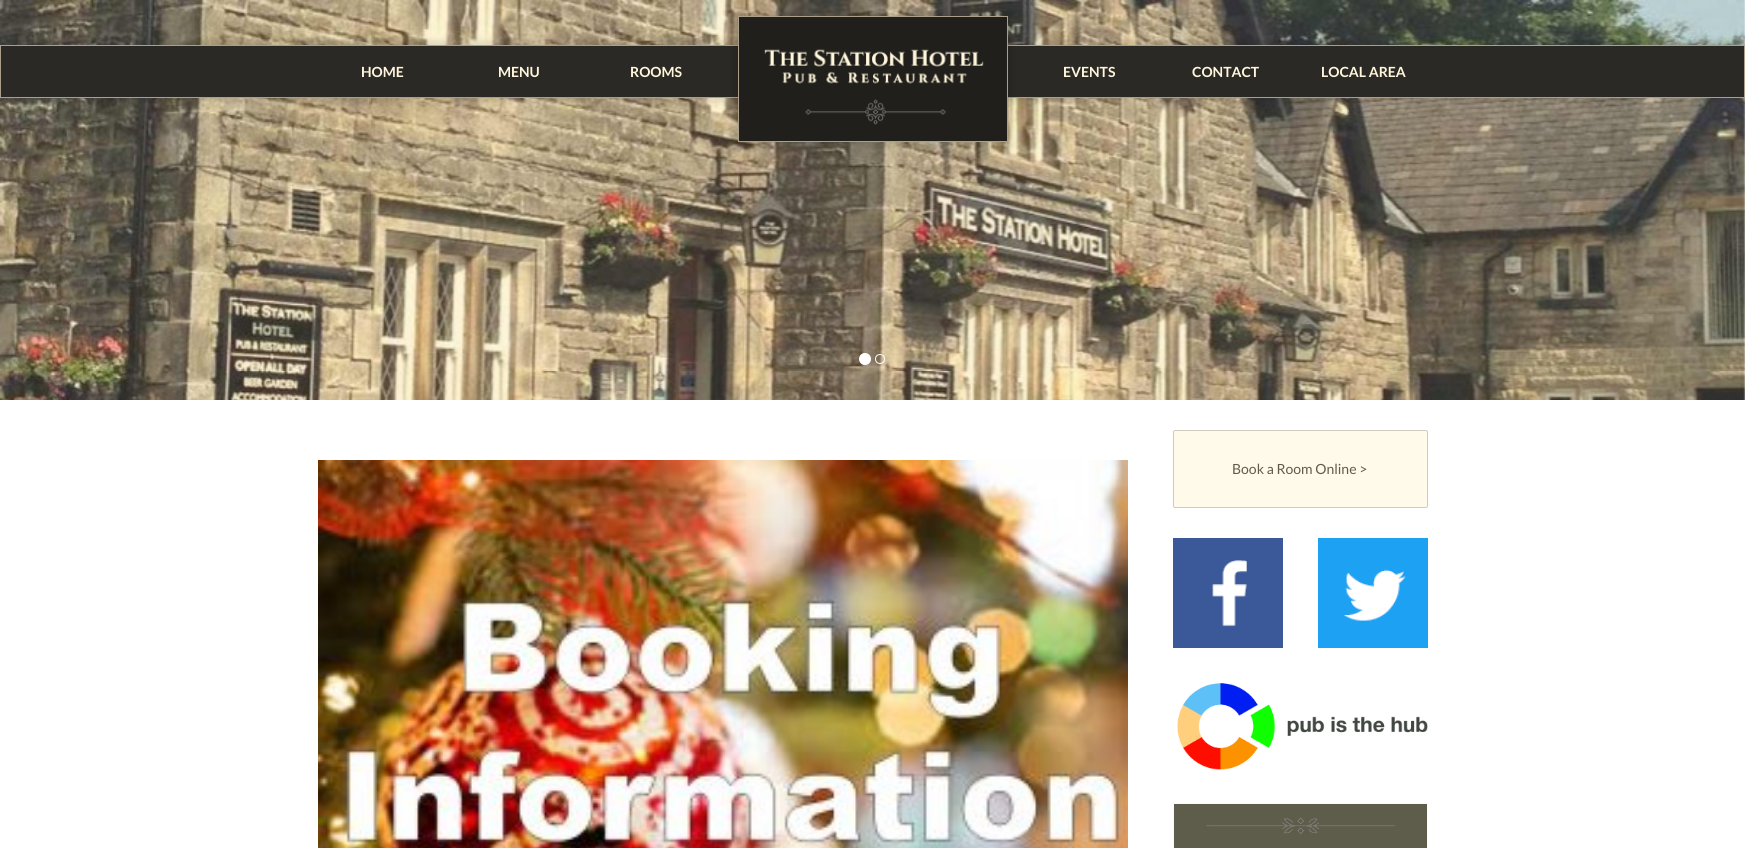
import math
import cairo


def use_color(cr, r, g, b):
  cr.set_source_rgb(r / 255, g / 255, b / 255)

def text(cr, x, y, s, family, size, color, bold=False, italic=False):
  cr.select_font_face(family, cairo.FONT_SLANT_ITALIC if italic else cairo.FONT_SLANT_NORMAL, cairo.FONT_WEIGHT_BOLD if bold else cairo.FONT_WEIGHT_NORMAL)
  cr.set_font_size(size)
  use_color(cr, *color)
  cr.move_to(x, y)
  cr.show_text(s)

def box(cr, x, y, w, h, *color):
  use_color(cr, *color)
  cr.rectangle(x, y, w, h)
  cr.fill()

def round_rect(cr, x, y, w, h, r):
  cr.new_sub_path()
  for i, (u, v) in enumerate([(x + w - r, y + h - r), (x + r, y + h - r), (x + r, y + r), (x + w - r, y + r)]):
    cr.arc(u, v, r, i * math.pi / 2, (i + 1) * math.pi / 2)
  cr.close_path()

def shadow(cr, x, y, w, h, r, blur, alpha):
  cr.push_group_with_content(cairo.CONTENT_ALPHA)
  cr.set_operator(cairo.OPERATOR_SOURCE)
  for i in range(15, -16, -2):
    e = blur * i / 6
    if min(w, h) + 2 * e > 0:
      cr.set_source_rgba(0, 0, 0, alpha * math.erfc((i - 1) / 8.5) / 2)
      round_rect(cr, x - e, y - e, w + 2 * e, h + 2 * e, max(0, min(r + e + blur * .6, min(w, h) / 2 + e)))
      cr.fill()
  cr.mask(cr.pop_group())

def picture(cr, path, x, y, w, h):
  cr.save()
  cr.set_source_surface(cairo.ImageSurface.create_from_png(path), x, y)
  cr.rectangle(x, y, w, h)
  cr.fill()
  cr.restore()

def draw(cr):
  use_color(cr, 255, 255, 255)
  cr.paint()
  picture(cr, "img_01.png", 0, 0, 1745, 400)
  use_color(cr, 255, 255, 255)
  cr.arc(865, 359, 5.5, 0, 2 * math.pi)
  cr.fill_preserve()
  cr.set_line_width(1)
  cr.stroke()
  cr.arc(880, 359, 4.5, 0, 2 * math.pi)
  cr.stroke()
  use_color(cr, 0, 0, 0)
  shadow(cr, -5, 40, 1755, 63, 0, 2.5, 0.1)
  use_color(cr, 43, 41, 37)
  cr.rectangle(0.5, 45.5, 1744, 52)
  cr.fill_preserve()
  use_color(cr, 171, 159, 138)
  cr.stroke()
  use_color(cr, 0, 0, 0)
  shadow(cr, 733, 11, 280, 136, 0, 2.5, 0.1)
  cr.rectangle(738.5, 16.5, 269, 125)
  use_color(cr, 171, 159, 138)
  cr.stroke()
  picture(cr, "img_02.png", 739, 17, 268, 124)
  picture(cr, "img_03.png", 318, 460, 810, 388)
  use_color(cr, 255, 250, 233)
  round_rect(cr, 1173.5, 430.5, 254, 77, 1.5)
  cr.fill_preserve()
  use_color(cr, 209, 202, 190)
  cr.stroke()
  picture(cr, "img_04.png", 1173, 538, 110, 110)
  picture(cr, "img_05.png", 1318, 538, 110, 110)
  picture(cr, "img_06.png", 1177, 683, 251, 87)
  box(cr, 1174, 804, 253, 44, 94, 93, 76)
  picture(cr, "img_07.png", 1206, 817, 189, 17)
  cr.rectangle(1173.5, 803.5, 254, 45)
  use_color(cr, 255, 250, 233)
  cr.stroke()
  text(cr, 361, 77, "HOME", "Lato", 14, (255, 246, 219), bold=True)
  text(cr, 498, 77, "MENU", "Lato", 14, (255, 246, 219), bold=True)
  text(cr, 630, 77, "ROOMS", "Lato", 14, (255, 246, 219), bold=True)
  text(cr, 1063, 77, "EVENTS", "Lato", 14, (255, 246, 219), bold=True)
  text(cr, 1192, 77, "CONTACT", "Lato", 14, (255, 246, 219), bold=True)
  text(cr, 1321, 77, "LOCAL AREA", "Lato", 14, (255, 246, 219), bold=True)
  text(cr, 1232, 474, "Book a Room Online >", "Lato", 14, (94, 93, 76))


surface = cairo.ImageSurface(cairo.FORMAT_RGB24, 1745, 848)
cr = cairo.Context(surface)
options = cairo.FontOptions()
options.set_hint_metrics(cairo.HINT_METRICS_OFF)
options.set_hint_style(cairo.HINT_STYLE_NONE)
cr.set_font_options(options)
cr.set_miter_limit(4)
draw(cr)
surface.write_to_png("out.png")
